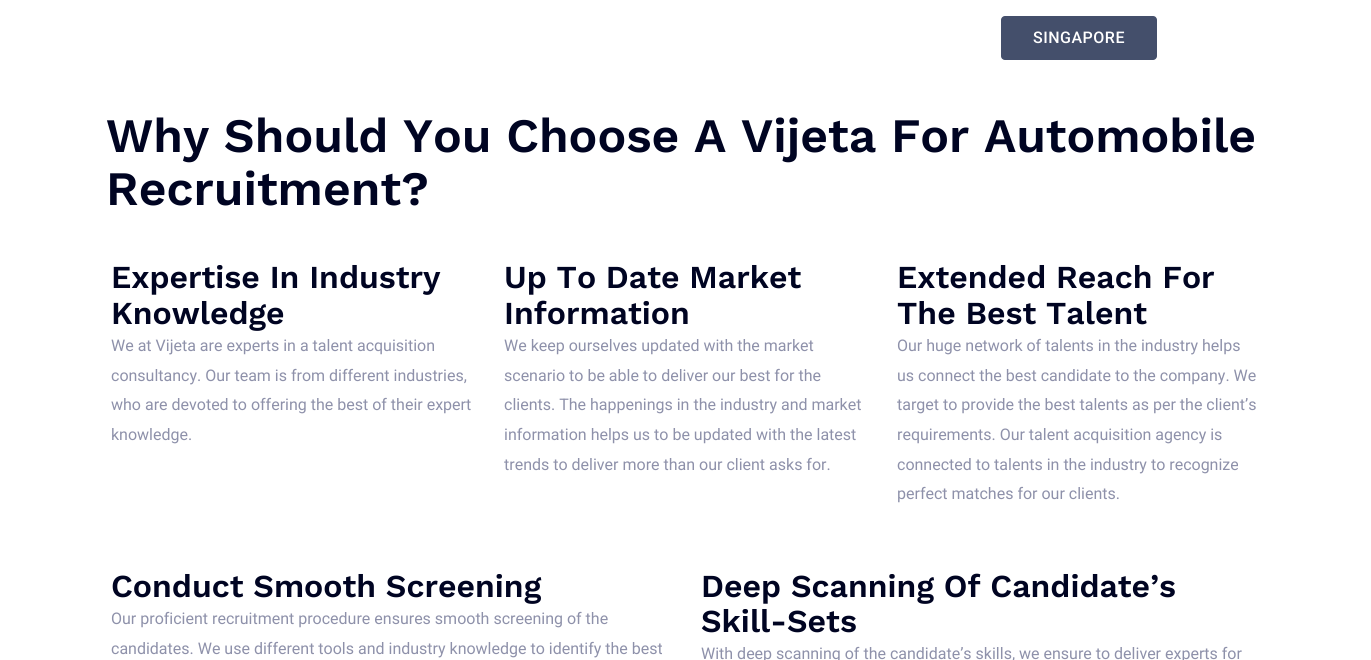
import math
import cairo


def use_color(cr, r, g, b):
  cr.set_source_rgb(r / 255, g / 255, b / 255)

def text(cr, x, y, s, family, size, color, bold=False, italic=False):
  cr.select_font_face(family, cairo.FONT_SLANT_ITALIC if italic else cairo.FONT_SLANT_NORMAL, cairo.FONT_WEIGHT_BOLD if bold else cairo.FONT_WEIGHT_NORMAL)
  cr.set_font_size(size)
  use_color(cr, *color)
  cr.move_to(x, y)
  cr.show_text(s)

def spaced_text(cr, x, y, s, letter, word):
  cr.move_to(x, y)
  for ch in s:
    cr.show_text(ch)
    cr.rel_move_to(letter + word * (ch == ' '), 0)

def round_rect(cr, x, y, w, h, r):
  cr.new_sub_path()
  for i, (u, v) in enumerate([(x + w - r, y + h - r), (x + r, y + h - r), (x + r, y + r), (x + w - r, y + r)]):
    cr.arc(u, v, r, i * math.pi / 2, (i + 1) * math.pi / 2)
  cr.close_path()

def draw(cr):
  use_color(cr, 255, 255, 255)
  cr.paint()
  use_color(cr, 68, 79, 107)
  round_rect(cr, 1001, 16, 156, 44, 4)
  cr.fill()
  cr.select_font_face("Roboto Medium")
  cr.set_font_size(16)
  use_color(cr, 255, 255, 255)
  spaced_text(cr, 1033, 43, "SINGAPORE", 0.5, 0)
  text(cr, 106, 152, "Why Should You Choose A Vijeta For Automobile", "Work Sans SemiBold", 48, (0, 4, 34))
  text(cr, 106, 205, "Recruitment?", "Work Sans SemiBold", 48, (0, 4, 34))
  text(cr, 111, 288, "Expertise In Industry", "Work Sans SemiBold", 32, (0, 4, 34))
  text(cr, 111, 324, "Knowledge", "Work Sans SemiBold", 32, (0, 4, 34))
  text(cr, 111, 351, "We at Vijeta are experts in a talent acquisition", "Roboto", 16, (142, 145, 170))
  text(cr, 111, 381, "consultancy. Our team is from different industries,", "Roboto", 16, (142, 145, 170))
  text(cr, 111, 410, "who are devoted to offering the best of their expert", "Roboto", 16, (142, 145, 170))
  text(cr, 111, 440, "knowledge.", "Roboto", 16, (142, 145, 170))
  text(cr, 504, 288, "Up To Date Market", "Work Sans SemiBold", 32, (0, 4, 34))
  text(cr, 504, 324, "Information", "Work Sans SemiBold", 32, (0, 4, 34))
  text(cr, 504, 351, "We keep ourselves updated with the market", "Roboto", 16, (142, 145, 170))
  text(cr, 504, 381, "scenario to be able to deliver our best for the", "Roboto", 16, (142, 145, 170))
  text(cr, 504, 410, "clients. The happenings in the industry and market", "Roboto", 16, (142, 145, 170))
  text(cr, 504, 440, "information helps us to be updated with the latest", "Roboto", 16, (142, 145, 170))
  text(cr, 504, 470, "trends to deliver more than our client asks for.", "Roboto", 16, (142, 145, 170))
  text(cr, 897, 288, "Extended Reach For", "Work Sans SemiBold", 32, (0, 4, 34))
  text(cr, 897, 324, "The Best Talent", "Work Sans SemiBold", 32, (0, 4, 34))
  text(cr, 897, 351, "Our huge network of talents in the industry helps", "Roboto", 16, (142, 145, 170))
  text(cr, 897, 381, "us connect the best candidate to the company. We", "Roboto", 16, (142, 145, 170))
  text(cr, 897, 410, "target to provide the best talents as per the client’s", "Roboto", 16, (142, 145, 170))
  text(cr, 897, 440, "requirements. Our talent acquisition agency is", "Roboto", 16, (142, 145, 170))
  text(cr, 897, 470, "connected to talents in the industry to recognize", "Roboto", 16, (142, 145, 170))
  text(cr, 897, 499, "perfect matches for our clients.", "Roboto", 16, (142, 145, 170))
  text(cr, 111, 597, "Conduct Smooth Screening", "Work Sans SemiBold", 32, (0, 4, 34))
  text(cr, 111, 624, "Our proficient recruitment procedure ensures smooth screening of the", "Roboto", 16, (142, 145, 170))
  text(cr, 111, 654, "candidates. We use different tools and industry knowledge to identify the best", "Roboto", 16, (142, 145, 170))
  text(cr, 701, 597, "Deep Scanning Of Candidate’s", "Work Sans SemiBold", 32, (0, 4, 34))
  text(cr, 701, 632, "Skill-Sets", "Work Sans SemiBold", 32, (0, 4, 34))
  text(cr, 701, 659, "With deep scanning of the candidate’s skills, we ensure to deliver experts for", "Roboto", 16, (142, 145, 170))


surface = cairo.ImageSurface(cairo.FORMAT_RGB24, 1371, 660)
cr = cairo.Context(surface)
options = cairo.FontOptions()
options.set_hint_metrics(cairo.HINT_METRICS_OFF)
options.set_hint_style(cairo.HINT_STYLE_NONE)
cr.set_font_options(options)
cr.set_miter_limit(4)
draw(cr)
surface.write_to_png("out.png")
